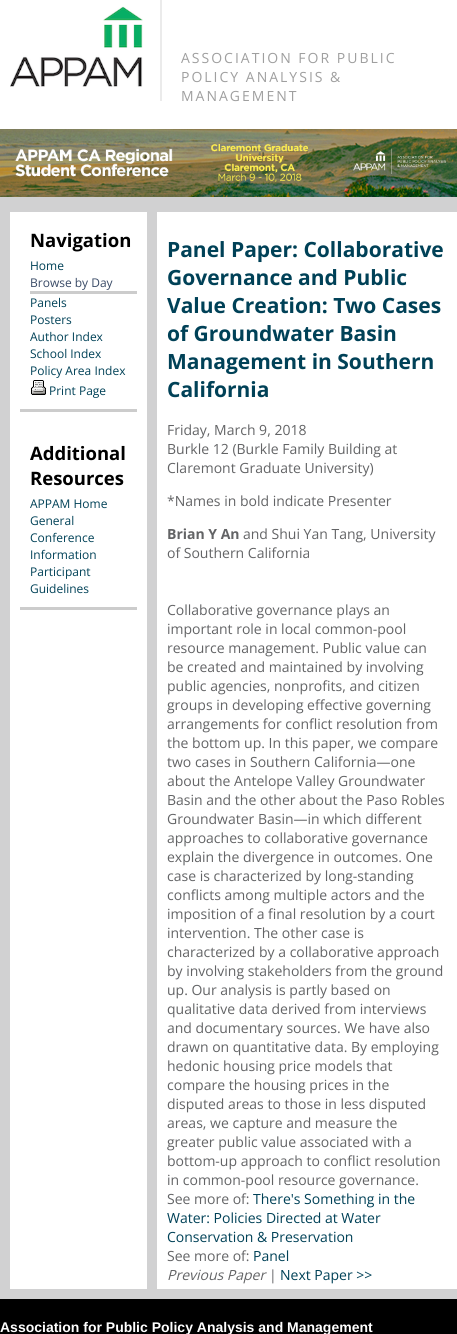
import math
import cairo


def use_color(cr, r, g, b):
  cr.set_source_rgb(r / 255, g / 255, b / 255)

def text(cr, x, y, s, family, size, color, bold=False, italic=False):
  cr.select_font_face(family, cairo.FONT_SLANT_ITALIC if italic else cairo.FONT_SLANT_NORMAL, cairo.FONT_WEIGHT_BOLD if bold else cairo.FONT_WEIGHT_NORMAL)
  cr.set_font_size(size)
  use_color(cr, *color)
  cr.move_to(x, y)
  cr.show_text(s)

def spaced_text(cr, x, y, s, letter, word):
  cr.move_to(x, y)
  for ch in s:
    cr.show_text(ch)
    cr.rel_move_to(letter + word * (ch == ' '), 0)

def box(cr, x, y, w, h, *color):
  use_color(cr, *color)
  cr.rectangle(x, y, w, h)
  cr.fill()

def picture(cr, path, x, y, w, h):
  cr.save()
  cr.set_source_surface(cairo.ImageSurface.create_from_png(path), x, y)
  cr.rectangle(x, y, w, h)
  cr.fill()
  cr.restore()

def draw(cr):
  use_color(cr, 209, 209, 210)
  cr.paint()
  box(cr, 0, 0, 457, 129, 255, 255, 255)
  picture(cr, "img_01.png", 10, 6, 133, 81)
  box(cr, 160, 0, 2, 101, 235, 235, 235)
  picture(cr, "img_02.png", 0, 129, 457, 68)
  box(cr, 10, 212, 137, 1077, 255, 255, 255)
  box(cr, 20, 409, 117, 3, 204, 204, 204)
  box(cr, 30, 291, 107, 3, 204, 204, 204)
  picture(cr, "img_03.png", 31, 380, 15, 15)
  box(cr, 20, 607, 117, 3, 204, 204, 204)
  box(cr, 157, 212, 300, 1077, 255, 255, 255)
  box(cr, 0, 1299, 457, 35, 0, 0, 0)
  cr.select_font_face("Open Sans")
  cr.set_font_size(14)
  use_color(cr, 159, 159, 159)
  spaced_text(cr, 181, 63, "ASSOCIATION FOR PUBLIC", 2, 0)
  spaced_text(cr, 181, 82, "POLICY ANALYSIS &", 2, 0)
  spaced_text(cr, 181, 101, "MANAGEMENT", 2, 0)
  text(cr, 30, 247, "Navigation", "Open Sans", 18.5, (0, 0, 0), bold=True)
  text(cr, 30, 270, "Home", "Open Sans", 12, (0, 65, 87))
  text(cr, 30, 287, "Browse by Day", "Open Sans", 12, (57, 74, 102))
  text(cr, 30, 307, "Panels", "Open Sans", 12, (0, 65, 87))
  text(cr, 30, 324, "Posters", "Open Sans", 12, (0, 65, 87))
  text(cr, 30, 341, "Author Index", "Open Sans", 12, (0, 65, 87))
  text(cr, 30, 358, "School Index", "Open Sans", 12, (0, 65, 87))
  text(cr, 30, 375, "Policy Area Index", "Open Sans", 12, (0, 65, 87))
  text(cr, 49, 395, "Print Page", "Open Sans", 12, (0, 65, 87))
  text(cr, 30, 460, "Additional", "Open Sans", 18.5, (0, 0, 0), bold=True)
  text(cr, 30, 485, "Resources", "Open Sans", 18.5, (0, 0, 0), bold=True)
  text(cr, 30, 508, "APPAM Home", "Open Sans", 12, (0, 65, 87))
  text(cr, 30, 525, "General", "Open Sans", 12, (0, 65, 87))
  text(cr, 30, 542, "Conference", "Open Sans", 12, (0, 65, 87))
  text(cr, 30, 559, "Information", "Open Sans", 12, (0, 65, 87))
  text(cr, 30, 576, "Participant", "Open Sans", 12, (0, 65, 87))
  text(cr, 30, 593, "Guidelines", "Open Sans", 12, (0, 65, 87))
  text(cr, 167, 257, "Panel Paper: Collaborative", "Open Sans", 21, (0, 65, 87), bold=True)
  text(cr, 167, 285, "Governance and Public", "Open Sans", 21, (0, 65, 87), bold=True)
  text(cr, 167, 313, "Value Creation: Two Cases", "Open Sans", 21, (0, 65, 87), bold=True)
  text(cr, 167, 341, "of Groundwater Basin", "Open Sans", 21, (0, 65, 87), bold=True)
  text(cr, 167, 369, "Management in Southern", "Open Sans", 21, (0, 65, 87), bold=True)
  text(cr, 167, 397, "California", "Open Sans", 21, (0, 65, 87), bold=True)
  text(cr, 167, 435, "Friday, March 9, 2018", "Open Sans", 14, (99, 100, 102))
  text(cr, 167, 454, "Burkle 12 (Burkle Family Building at", "Open Sans", 14, (99, 100, 102))
  text(cr, 167, 473, "Claremont Graduate University)", "Open Sans", 14, (99, 100, 102))
  text(cr, 167, 506, "*Names in bold indicate Presenter", "Open Sans", 14, (99, 100, 102))
  text(cr, 167, 539, "Brian Y An", "Open Sans", 14, (99, 100, 102), bold=True)
  text(cr, 243, 539, "and Shui Yan Tang, University", "Open Sans", 14, (99, 100, 102))
  text(cr, 167, 558, "of Southern California", "Open Sans", 14, (99, 100, 102))
  text(cr, 167, 615, "Collaborative governance plays an", "Open Sans", 14, (99, 100, 102))
  text(cr, 167, 634, "important role in local common-pool", "Open Sans", 14, (99, 100, 102))
  text(cr, 167, 653, "resource management. Public value can", "Open Sans", 14, (99, 100, 102))
  text(cr, 167, 672, "be created and maintained by involving", "Open Sans", 14, (99, 100, 102))
  text(cr, 167, 691, "public agencies, nonprofits, and citizen", "Open Sans", 14, (99, 100, 102))
  text(cr, 167, 710, "groups in developing effective governing", "Open Sans", 14, (99, 100, 102))
  text(cr, 167, 729, "arrangements for conflict resolution from", "Open Sans", 14, (99, 100, 102))
  text(cr, 167, 748, "the bottom up. In this paper, we compare", "Open Sans", 14, (99, 100, 102))
  text(cr, 167, 767, "two cases in Southern California—one", "Open Sans", 14, (99, 100, 102))
  text(cr, 167, 786, "about the Antelope Valley Groundwater", "Open Sans", 14, (99, 100, 102))
  text(cr, 167, 805, "Basin and the other about the Paso Robles", "Open Sans", 14, (99, 100, 102))
  text(cr, 167, 824, "Groundwater Basin—in which different", "Open Sans", 14, (99, 100, 102))
  text(cr, 167, 843, "approaches to collaborative governance", "Open Sans", 14, (99, 100, 102))
  text(cr, 167, 862, "explain the divergence in outcomes. One", "Open Sans", 14, (99, 100, 102))
  text(cr, 167, 881, "case is characterized by long-standing", "Open Sans", 14, (99, 100, 102))
  text(cr, 167, 900, "conflicts among multiple actors and the", "Open Sans", 14, (99, 100, 102))
  text(cr, 167, 919, "imposition of a final resolution by a court", "Open Sans", 14, (99, 100, 102))
  text(cr, 167, 938, "intervention. The other case is", "Open Sans", 14, (99, 100, 102))
  text(cr, 167, 957, "characterized by a collaborative approach", "Open Sans", 14, (99, 100, 102))
  text(cr, 167, 976, "by involving stakeholders from the ground", "Open Sans", 14, (99, 100, 102))
  text(cr, 167, 995, "up. Our analysis is partly based on", "Open Sans", 14, (99, 100, 102))
  text(cr, 167, 1014, "qualitative data derived from interviews", "Open Sans", 14, (99, 100, 102))
  text(cr, 167, 1033, "and documentary sources. We have also", "Open Sans", 14, (99, 100, 102))
  text(cr, 167, 1052, "drawn on quantitative data. By employing", "Open Sans", 14, (99, 100, 102))
  text(cr, 167, 1071, "hedonic housing price models that", "Open Sans", 14, (99, 100, 102))
  text(cr, 167, 1090, "compare the housing prices in the", "Open Sans", 14, (99, 100, 102))
  text(cr, 167, 1109, "disputed areas to those in less disputed", "Open Sans", 14, (99, 100, 102))
  text(cr, 167, 1128, "areas, we capture and measure the", "Open Sans", 14, (99, 100, 102))
  text(cr, 167, 1147, "greater public value associated with a", "Open Sans", 14, (99, 100, 102))
  text(cr, 167, 1166, "bottom-up approach to conflict resolution", "Open Sans", 14, (99, 100, 102))
  text(cr, 167, 1185, "in common-pool resource governance.", "Open Sans", 14, (99, 100, 102))
  text(cr, 167, 1204, "See more of:", "Open Sans", 14, (99, 100, 102))
  text(cr, 253, 1204, "There's Something in the", "Open Sans", 14, (0, 65, 87))
  text(cr, 167, 1223, "Water: Policies Directed at Water", "Open Sans", 14, (0, 65, 87))
  text(cr, 167, 1242, "Conservation & Preservation", "Open Sans", 14, (0, 65, 87))
  text(cr, 167, 1261, "See more of:", "Open Sans", 14, (99, 100, 102))
  text(cr, 253, 1261, "Panel", "Open Sans", 14, (0, 65, 87))
  text(cr, 167, 1280, "Previous Paper", "Open Sans", 14, (99, 100, 102), italic=True)
  text(cr, 269, 1280, "|", "Open Sans", 14, (99, 100, 102))
  text(cr, 280, 1280, "Next Paper >>", "Open Sans", 14, (0, 65, 87))
  text(cr, 0, 1332, "Association for Public Policy Analysis and Management", "Liberation Sans", 14, (255, 255, 255), bold=True)


surface = cairo.ImageSurface(cairo.FORMAT_RGB24, 457, 1334)
cr = cairo.Context(surface)
options = cairo.FontOptions()
options.set_hint_metrics(cairo.HINT_METRICS_OFF)
options.set_hint_style(cairo.HINT_STYLE_NONE)
cr.set_font_options(options)
cr.set_miter_limit(4)
draw(cr)
surface.write_to_png("out.png")
